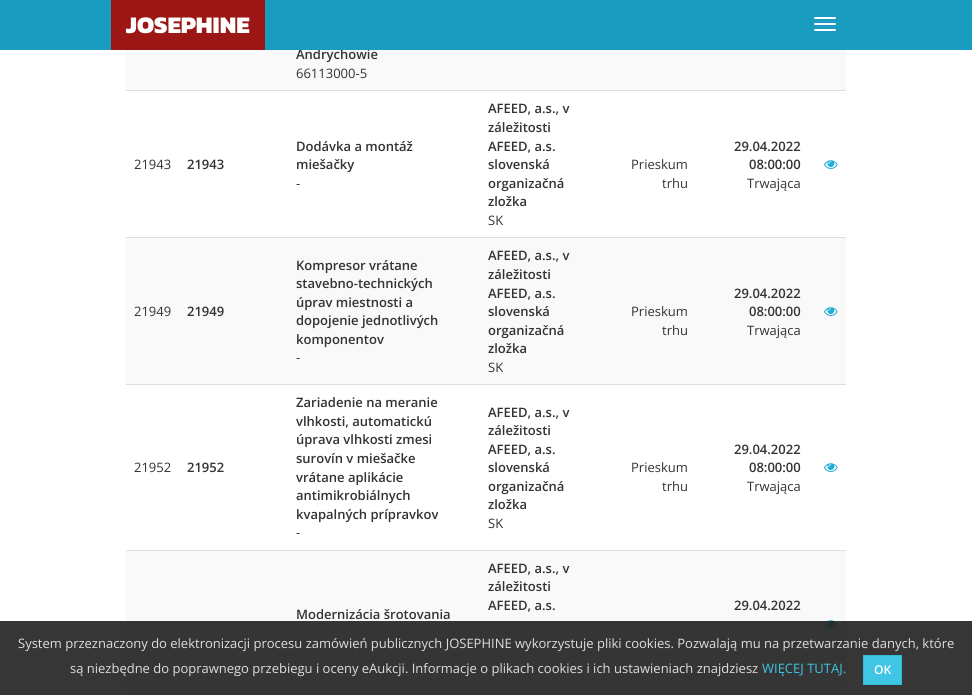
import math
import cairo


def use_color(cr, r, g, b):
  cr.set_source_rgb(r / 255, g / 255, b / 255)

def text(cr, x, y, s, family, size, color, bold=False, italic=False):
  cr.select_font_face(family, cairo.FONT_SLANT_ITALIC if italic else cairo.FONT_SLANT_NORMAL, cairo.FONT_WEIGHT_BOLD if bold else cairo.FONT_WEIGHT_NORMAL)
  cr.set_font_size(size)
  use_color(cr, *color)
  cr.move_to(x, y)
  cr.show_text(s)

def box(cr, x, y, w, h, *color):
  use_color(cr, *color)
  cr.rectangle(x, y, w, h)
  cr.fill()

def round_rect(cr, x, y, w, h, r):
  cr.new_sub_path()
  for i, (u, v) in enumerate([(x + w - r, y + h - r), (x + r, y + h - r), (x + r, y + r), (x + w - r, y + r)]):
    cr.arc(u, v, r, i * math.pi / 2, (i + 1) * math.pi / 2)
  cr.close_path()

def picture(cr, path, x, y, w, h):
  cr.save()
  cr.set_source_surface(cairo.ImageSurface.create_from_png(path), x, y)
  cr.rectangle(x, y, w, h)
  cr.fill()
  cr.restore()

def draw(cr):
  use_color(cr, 255, 255, 255)
  cr.paint()
  box(cr, 126, 50, 720, 40, 249, 249, 249)
  box(cr, 126, 90, 720, 1, 221, 221, 221)
  picture(cr, "img_01.png", 824, 160, 14, 9)
  box(cr, 126, 238, 720, 146, 249, 249, 249)
  box(cr, 126, 237, 720, 1, 221, 221, 221)
  picture(cr, "img_02.png", 824, 307, 14, 9)
  box(cr, 126, 384, 720, 1, 221, 221, 221)
  picture(cr, "img_01.png", 824, 463, 14, 9)
  box(cr, 126, 551, 720, 144, 249, 249, 249)
  box(cr, 126, 550, 720, 1, 221, 221, 221)
  picture(cr, "img_02.png", 824, 620, 14, 9)
  cr.set_source_rgba(0.129, 0.129, 0.129, 0.9)
  cr.rectangle(0, 621, 972, 74)
  cr.fill()
  use_color(cr, 64, 197, 229)
  cr.rectangle(863.5, 655.5, 38, 29)
  cr.fill_preserve()
  use_color(cr, 52, 187, 218)
  cr.set_line_width(1)
  cr.stroke()
  text(cr, 296, 59, "Andrychowie", "Open Sans SemiBold", 13, (51, 51, 51))
  box(cr, 0, 0, 972, 50, 26, 155, 192)
  use_color(cr, 255, 255, 255)
  round_rect(cr, 814, 29, 22, 2, 1)
  cr.fill()
  round_rect(cr, 814, 23, 22, 2, 1)
  cr.fill()
  round_rect(cr, 814, 17, 22, 2, 1)
  cr.fill()
  box(cr, 111, 0, 154, 50, 155, 22, 20)
  text(cr, 126, 33, "JOSEPHINE", "Kanit ExtraBold", 24, (255, 255, 255))
  text(cr, 296, 78, "66113000-5", "Open Sans", 13, (51, 51, 51))
  text(cr, 134, 169, "21943", "Open Sans", 13, (51, 51, 51))
  text(cr, 187, 169, "21943", "Open Sans SemiBold", 13, (51, 51, 51))
  text(cr, 296, 151, "Dodávka a montáž", "Open Sans SemiBold", 13, (51, 51, 51))
  text(cr, 296, 169, "miešačky", "Open Sans SemiBold", 13, (51, 51, 51))
  text(cr, 296, 188, "-", "Open Sans", 13, (51, 51, 51))
  text(cr, 488, 113, "AFEED, a.s., v", "Open Sans SemiBold", 13, (51, 51, 51))
  text(cr, 488, 132, "záležitosti", "Open Sans SemiBold", 13, (51, 51, 51))
  text(cr, 488, 151, "AFEED, a.s.", "Open Sans SemiBold", 13, (51, 51, 51))
  text(cr, 488, 169, "slovenská", "Open Sans SemiBold", 13, (51, 51, 51))
  text(cr, 488, 188, "organizačná", "Open Sans SemiBold", 13, (51, 51, 51))
  text(cr, 488, 206, "zložka", "Open Sans SemiBold", 13, (51, 51, 51))
  text(cr, 488, 225, "SK", "Open Sans", 13, (51, 51, 51))
  text(cr, 631, 169, "Prieskum", "Open Sans", 13, (51, 51, 51))
  text(cr, 662, 188, "trhu", "Open Sans", 13, (51, 51, 51))
  text(cr, 734, 151, "29.04.2022", "Open Sans SemiBold", 13, (51, 51, 51))
  text(cr, 749, 169, "08:00:00", "Open Sans SemiBold", 13, (51, 51, 51))
  text(cr, 747, 188, "Trwająca", "Open Sans", 13, (51, 51, 51))
  text(cr, 134, 316, "21949", "Open Sans", 13, (51, 51, 51))
  text(cr, 187, 316, "21949", "Open Sans SemiBold", 13, (51, 51, 51))
  text(cr, 296, 270, "Kompresor vrátane", "Open Sans SemiBold", 13, (51, 51, 51))
  text(cr, 296, 288, "stavebno-technických", "Open Sans SemiBold", 13, (51, 51, 51))
  text(cr, 296, 307, "úprav miestnosti a", "Open Sans SemiBold", 13, (51, 51, 51))
  text(cr, 296, 325, "dopojenie jednotlivých", "Open Sans SemiBold", 13, (51, 51, 51))
  text(cr, 296, 344, "komponentov", "Open Sans SemiBold", 13, (51, 51, 51))
  text(cr, 296, 362, "-", "Open Sans", 13, (51, 51, 51))
  text(cr, 488, 260, "AFEED, a.s., v", "Open Sans SemiBold", 13, (51, 51, 51))
  text(cr, 488, 279, "záležitosti", "Open Sans SemiBold", 13, (51, 51, 51))
  text(cr, 488, 298, "AFEED, a.s.", "Open Sans SemiBold", 13, (51, 51, 51))
  text(cr, 488, 316, "slovenská", "Open Sans SemiBold", 13, (51, 51, 51))
  text(cr, 488, 335, "organizačná", "Open Sans SemiBold", 13, (51, 51, 51))
  text(cr, 488, 353, "zložka", "Open Sans SemiBold", 13, (51, 51, 51))
  text(cr, 488, 372, "SK", "Open Sans", 13, (51, 51, 51))
  text(cr, 631, 316, "Prieskum", "Open Sans", 13, (51, 51, 51))
  text(cr, 662, 335, "trhu", "Open Sans", 13, (51, 51, 51))
  text(cr, 734, 298, "29.04.2022", "Open Sans SemiBold", 13, (51, 51, 51))
  text(cr, 749, 316, "08:00:00", "Open Sans SemiBold", 13, (51, 51, 51))
  text(cr, 747, 335, "Trwająca", "Open Sans", 13, (51, 51, 51))
  text(cr, 134, 472, "21952", "Open Sans", 13, (51, 51, 51))
  text(cr, 187, 472, "21952", "Open Sans SemiBold", 13, (51, 51, 51))
  text(cr, 296, 407, "Zariadenie na meranie", "Open Sans SemiBold", 13, (51, 51, 51))
  text(cr, 296, 426, "vlhkosti, automatickú", "Open Sans SemiBold", 13, (51, 51, 51))
  text(cr, 296, 444, "úprava vlhkosti zmesi", "Open Sans SemiBold", 13, (51, 51, 51))
  text(cr, 296, 463, "surovín v miešačke", "Open Sans SemiBold", 13, (51, 51, 51))
  text(cr, 296, 482, "vrátane aplikácie", "Open Sans SemiBold", 13, (51, 51, 51))
  text(cr, 296, 500, "antimikrobiálnych", "Open Sans SemiBold", 13, (51, 51, 51))
  text(cr, 296, 519, "kvapalných prípravkov", "Open Sans SemiBold", 13, (51, 51, 51))
  text(cr, 296, 537, "-", "Open Sans", 13, (51, 51, 51))
  text(cr, 488, 417, "AFEED, a.s., v", "Open Sans SemiBold", 13, (51, 51, 51))
  text(cr, 488, 435, "záležitosti", "Open Sans SemiBold", 13, (51, 51, 51))
  text(cr, 488, 454, "AFEED, a.s.", "Open Sans SemiBold", 13, (51, 51, 51))
  text(cr, 488, 472, "slovenská", "Open Sans SemiBold", 13, (51, 51, 51))
  text(cr, 488, 491, "organizačná", "Open Sans SemiBold", 13, (51, 51, 51))
  text(cr, 488, 509, "zložka", "Open Sans SemiBold", 13, (51, 51, 51))
  text(cr, 488, 528, "SK", "Open Sans", 13, (51, 51, 51))
  text(cr, 631, 472, "Prieskum", "Open Sans", 13, (51, 51, 51))
  text(cr, 662, 491, "trhu", "Open Sans", 13, (51, 51, 51))
  text(cr, 734, 454, "29.04.2022", "Open Sans SemiBold", 13, (51, 51, 51))
  text(cr, 749, 472, "08:00:00", "Open Sans SemiBold", 13, (51, 51, 51))
  text(cr, 747, 491, "Trwająca", "Open Sans", 13, (51, 51, 51))
  text(cr, 488, 573, "AFEED, a.s., v", "Open Sans SemiBold", 13, (51, 51, 51))
  text(cr, 488, 591, "záležitosti", "Open Sans SemiBold", 13, (51, 51, 51))
  text(cr, 488, 610, "AFEED, a.s.", "Open Sans SemiBold", 13, (51, 51, 51))
  text(cr, 734, 610, "29.04.2022", "Open Sans SemiBold", 13, (51, 51, 51))
  text(cr, 296, 619, "Modernizácia šrotovania", "Open Sans SemiBold", 13, (51, 51, 51))
  text(cr, 18, 648, "System przeznaczony do elektronizacji procesu zamówień publicznych JOSEPHINE wykorzystuje pliki cookies. Pozwalają mu na przetwarzanie danych, które", "Open Sans", 13, (222, 222, 222))
  text(cr, 70, 673, "są niezbędne do poprawnego przebiegu i oceny eAukcji. Informacje o plikach cookies i ich ustawieniach znajdziesz", "Open Sans", 13, (222, 222, 222))
  text(cr, 762, 673, "WIĘCEJ TUTAJ.", "Open Sans", 13, (64, 197, 228))
  text(cr, 874, 674, "OK", "Open Sans SemiBold", 12, (255, 255, 255))


surface = cairo.ImageSurface(cairo.FORMAT_RGB24, 972, 695)
cr = cairo.Context(surface)
options = cairo.FontOptions()
options.set_hint_metrics(cairo.HINT_METRICS_OFF)
options.set_hint_style(cairo.HINT_STYLE_NONE)
cr.set_font_options(options)
cr.set_miter_limit(4)
draw(cr)
surface.write_to_png("out.png")
